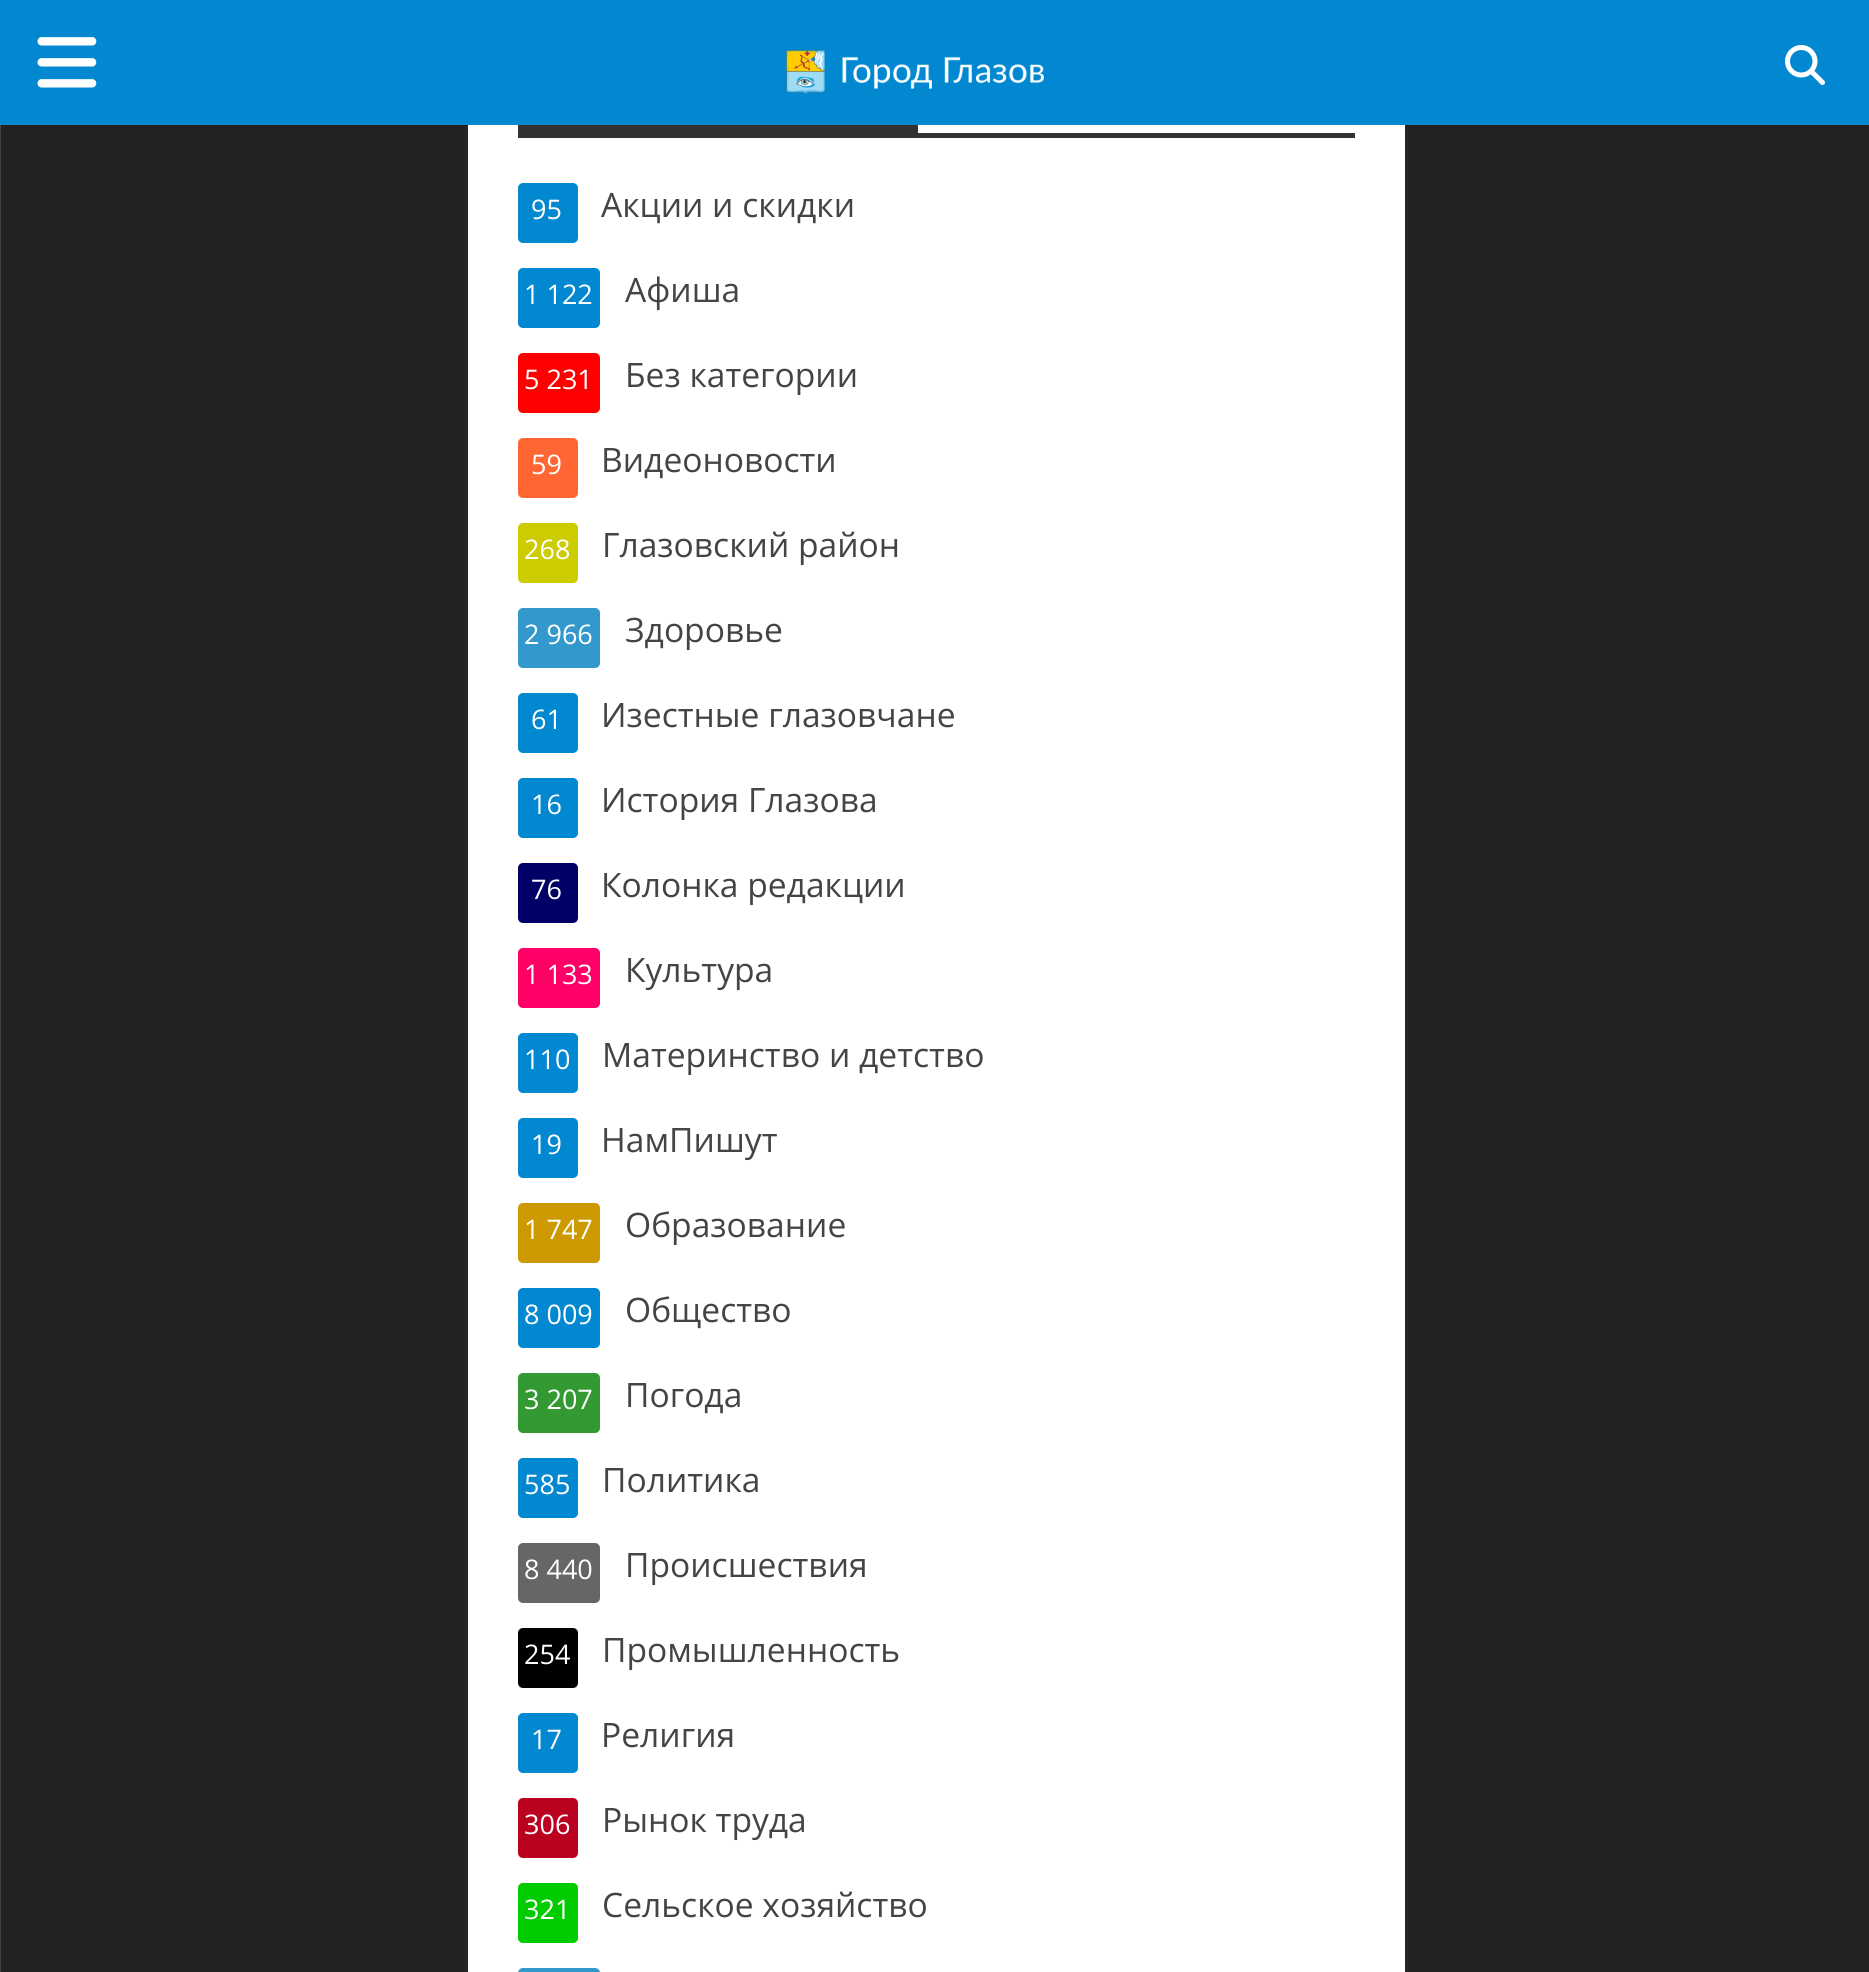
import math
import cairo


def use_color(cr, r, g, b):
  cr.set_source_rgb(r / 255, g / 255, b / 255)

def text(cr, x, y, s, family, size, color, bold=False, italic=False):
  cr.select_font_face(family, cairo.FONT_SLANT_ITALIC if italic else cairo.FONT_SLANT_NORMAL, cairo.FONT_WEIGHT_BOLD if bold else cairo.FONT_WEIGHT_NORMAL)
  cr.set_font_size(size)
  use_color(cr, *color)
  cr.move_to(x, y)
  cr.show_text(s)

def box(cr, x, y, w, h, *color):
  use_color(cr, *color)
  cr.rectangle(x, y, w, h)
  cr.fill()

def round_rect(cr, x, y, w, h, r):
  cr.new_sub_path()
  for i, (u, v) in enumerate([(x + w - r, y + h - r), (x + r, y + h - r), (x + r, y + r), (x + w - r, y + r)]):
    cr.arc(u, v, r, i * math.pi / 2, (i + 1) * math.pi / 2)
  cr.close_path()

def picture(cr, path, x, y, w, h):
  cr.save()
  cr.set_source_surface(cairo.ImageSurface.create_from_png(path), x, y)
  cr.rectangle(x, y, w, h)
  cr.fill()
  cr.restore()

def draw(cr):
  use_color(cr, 34, 34, 34)
  cr.paint()
  cr.rectangle(466.5, -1.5, 940, 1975)
  use_color(cr, 37, 37, 37)
  cr.set_line_width(3)
  cr.stroke()
  box(cr, 0, 0, 1869, 125, 2, 136, 209)
  picture(cr, "img_01.png", 37, 37, 60, 51)
  picture(cr, "img_02.png", 786, 49, 258, 46)
  picture(cr, "img_03.png", 1785, 45, 40, 40)
  box(cr, 0, 125, 1, 1847, 67, 67, 67)
  box(cr, 468, 125, 937, 1847, 255, 255, 255)
  box(cr, 518, 125, 400, 8, 51, 51, 51)
  box(cr, 518, 133, 837, 5, 51, 51, 51)
  use_color(cr, 2, 136, 209)
  round_rect(cr, 518, 183, 60, 60, 5)
  cr.fill()
  round_rect(cr, 518, 268, 82, 60, 5)
  cr.fill()
  use_color(cr, 255, 0, 0)
  round_rect(cr, 518, 353, 82, 60, 5)
  cr.fill()
  use_color(cr, 255, 102, 51)
  round_rect(cr, 518, 438, 60, 60, 5)
  cr.fill()
  use_color(cr, 204, 204, 0)
  round_rect(cr, 518, 523, 60, 60, 5)
  cr.fill()
  use_color(cr, 51, 153, 204)
  round_rect(cr, 518, 608, 82, 60, 5)
  cr.fill()
  use_color(cr, 2, 136, 209)
  round_rect(cr, 518, 693, 60, 60, 5)
  cr.fill()
  round_rect(cr, 518, 778, 60, 60, 5)
  cr.fill()
  use_color(cr, 0, 0, 102)
  round_rect(cr, 518, 863, 60, 60, 5)
  cr.fill()
  use_color(cr, 255, 0, 102)
  round_rect(cr, 518, 948, 82, 60, 5)
  cr.fill()
  use_color(cr, 2, 136, 209)
  round_rect(cr, 518, 1033, 60, 60, 5)
  cr.fill()
  round_rect(cr, 518, 1118, 60, 60, 5)
  cr.fill()
  use_color(cr, 204, 153, 0)
  round_rect(cr, 518, 1203, 82, 60, 5)
  cr.fill()
  use_color(cr, 2, 136, 209)
  round_rect(cr, 518, 1288, 82, 60, 5)
  cr.fill()
  use_color(cr, 51, 153, 51)
  round_rect(cr, 518, 1373, 82, 60, 5)
  cr.fill()
  use_color(cr, 2, 136, 209)
  round_rect(cr, 518, 1458, 60, 60, 5)
  cr.fill()
  use_color(cr, 102, 102, 102)
  round_rect(cr, 518, 1543, 82, 60, 5)
  cr.fill()
  use_color(cr, 0, 0, 0)
  round_rect(cr, 518, 1628, 60, 60, 5)
  cr.fill()
  use_color(cr, 2, 136, 209)
  round_rect(cr, 518, 1713, 60, 60, 5)
  cr.fill()
  use_color(cr, 186, 1, 32)
  round_rect(cr, 518, 1798, 60, 60, 5)
  cr.fill()
  use_color(cr, 0, 204, 0)
  round_rect(cr, 518, 1883, 60, 60, 5)
  cr.fill()
  use_color(cr, 51, 153, 204)
  round_rect(cr, 518, 1968, 82, 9, 5)
  cr.fill()
  text(cr, 531, 219, "95", "Open Sans", 27, (255, 255, 255))
  text(cr, 601, 217, "Акции и скидки", "Open Sans", 33.6, (68, 68, 68))
  text(cr, 524, 304, "1 122", "Open Sans", 27, (255, 255, 255))
  text(cr, 625, 302, "Афиша", "Open Sans", 33.6, (68, 68, 68))
  text(cr, 524, 389, "5 231", "Open Sans", 27, (255, 255, 255))
  text(cr, 625, 387, "Без категории", "Open Sans", 33.6, (68, 68, 68))
  text(cr, 531, 474, "59", "Open Sans", 27, (255, 255, 255))
  text(cr, 601, 472, "Видеоновости", "Open Sans", 33.6, (68, 68, 68))
  text(cr, 524, 559, "268", "Open Sans", 27, (255, 255, 255))
  text(cr, 602, 557, "Глазовский район", "Open Sans", 33.6, (68, 68, 68))
  text(cr, 524, 644, "2 966", "Open Sans", 27, (255, 255, 255))
  text(cr, 625, 642, "Здоровье", "Open Sans", 33.6, (68, 68, 68))
  text(cr, 531, 729, "61", "Open Sans", 27, (255, 255, 255))
  text(cr, 601, 727, "Изестные глазовчане", "Open Sans", 33.6, (68, 68, 68))
  text(cr, 531, 814, "16", "Open Sans", 27, (255, 255, 255))
  text(cr, 601, 812, "История Глазова", "Open Sans", 33.6, (68, 68, 68))
  text(cr, 531, 899, "76", "Open Sans", 27, (255, 255, 255))
  text(cr, 601, 897, "Колонка редакции", "Open Sans", 33.6, (68, 68, 68))
  text(cr, 524, 984, "1 133", "Open Sans", 27, (255, 255, 255))
  text(cr, 625, 982, "Культура", "Open Sans", 33.6, (68, 68, 68))
  text(cr, 524, 1069, "110", "Open Sans", 27, (255, 255, 255))
  text(cr, 602, 1067, "Материнство и детство", "Open Sans", 33.6, (68, 68, 68))
  text(cr, 531, 1154, "19", "Open Sans", 27, (255, 255, 255))
  text(cr, 601, 1152, "НамПишут", "Open Sans", 33.6, (68, 68, 68))
  text(cr, 524, 1239, "1 747", "Open Sans", 27, (255, 255, 255))
  text(cr, 625, 1237, "Образование", "Open Sans", 33.6, (68, 68, 68))
  text(cr, 524, 1324, "8 009", "Open Sans", 27, (255, 255, 255))
  text(cr, 625, 1322, "Общество", "Open Sans", 33.6, (68, 68, 68))
  text(cr, 524, 1409, "3 207", "Open Sans", 27, (255, 255, 255))
  text(cr, 625, 1407, "Погода", "Open Sans", 33.6, (68, 68, 68))
  text(cr, 524, 1494, "585", "Open Sans", 27, (255, 255, 255))
  text(cr, 602, 1492, "Политика", "Open Sans", 33.6, (68, 68, 68))
  text(cr, 524, 1579, "8 440", "Open Sans", 27, (255, 255, 255))
  text(cr, 625, 1577, "Происшествия", "Open Sans", 33.6, (68, 68, 68))
  text(cr, 524, 1664, "254", "Open Sans", 27, (255, 255, 255))
  text(cr, 602, 1662, "Промышленность", "Open Sans", 33.6, (68, 68, 68))
  text(cr, 531, 1749, "17", "Open Sans", 27, (255, 255, 255))
  text(cr, 601, 1747, "Религия", "Open Sans", 33.6, (68, 68, 68))
  text(cr, 524, 1834, "306", "Open Sans", 27, (255, 255, 255))
  text(cr, 602, 1832, "Рынок труда", "Open Sans", 33.6, (68, 68, 68))
  text(cr, 524, 1919, "321", "Open Sans", 27, (255, 255, 255))
  text(cr, 602, 1917, "Сельское хозяйство", "Open Sans", 33.6, (68, 68, 68))


surface = cairo.ImageSurface(cairo.FORMAT_RGB24, 1869, 1972)
cr = cairo.Context(surface)
options = cairo.FontOptions()
options.set_hint_metrics(cairo.HINT_METRICS_OFF)
options.set_hint_style(cairo.HINT_STYLE_NONE)
cr.set_font_options(options)
cr.set_miter_limit(4)
draw(cr)
surface.write_to_png("out.png")
